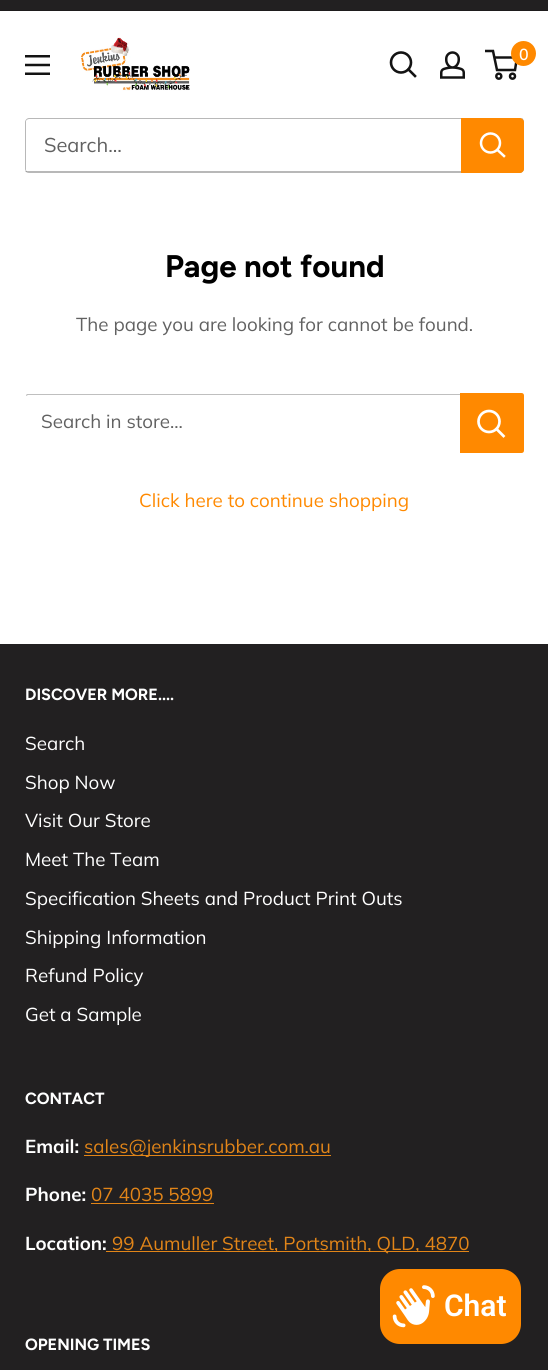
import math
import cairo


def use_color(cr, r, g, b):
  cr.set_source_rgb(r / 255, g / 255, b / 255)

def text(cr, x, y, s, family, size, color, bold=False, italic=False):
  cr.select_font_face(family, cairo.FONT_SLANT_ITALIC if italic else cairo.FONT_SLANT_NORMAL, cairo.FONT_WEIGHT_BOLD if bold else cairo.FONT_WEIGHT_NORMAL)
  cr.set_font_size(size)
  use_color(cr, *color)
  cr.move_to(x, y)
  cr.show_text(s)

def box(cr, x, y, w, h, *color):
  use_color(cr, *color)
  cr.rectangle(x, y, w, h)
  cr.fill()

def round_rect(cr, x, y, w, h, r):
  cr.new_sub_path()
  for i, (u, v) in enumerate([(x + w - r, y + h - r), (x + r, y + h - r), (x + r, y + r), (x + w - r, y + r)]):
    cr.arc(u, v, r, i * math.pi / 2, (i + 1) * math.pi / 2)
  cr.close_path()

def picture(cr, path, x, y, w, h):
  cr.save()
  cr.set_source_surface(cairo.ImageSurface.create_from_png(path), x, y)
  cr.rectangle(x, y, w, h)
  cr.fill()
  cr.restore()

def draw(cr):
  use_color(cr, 255, 255, 255)
  cr.paint()
  box(cr, 0, 0, 548, 10, 34, 32, 33)
  box(cr, 0, 10, 548, 1, 30, 28, 29)
  picture(cr, "img_01.png", 25, 55, 25, 20)
  picture(cr, "img_02.png", 81, 37, 109, 54)
  cr.new_path()
  cr.move_to(415, 76)
  cr.line_to(408.5, 69.5)
  use_color(cr, 19, 19, 19)
  cr.set_line_width(2.6)
  cr.set_line_cap(cairo.LINE_CAP_SQUARE)
  cr.stroke()
  cr.arc(401, 62.5, 10, 0, 2 * math.pi)
  cr.set_line_cap(cairo.LINE_CAP_BUTT)
  cr.stroke()
  picture(cr, "img_03.png", 440, 51, 25, 28)
  cr.arc(498.8, 76.2, 2.5, 0, 2 * math.pi)
  cr.set_line_width(2.5)
  cr.stroke()
  cr.arc(512.5, 76.2, 2.5, 0, 2 * math.pi)
  cr.stroke()
  cr.new_path()
  cr.move_to(494, 57.5)
  cr.line_to(517, 57.5)
  cr.line_to(515, 70)
  cr.line_to(497, 70)
  cr.line_to(493, 51)
  cr.line_to(485, 51)
  cr.stroke()
  use_color(cr, 255, 137, 0)
  cr.arc(523.5, 53.5, 12.5, 0, 2 * math.pi)
  cr.fill()
  use_color(cr, 184, 184, 184)
  cr.new_path()
  cr.move_to(25, 171)
  cr.curve_to(26, 172, 27, 173, 29, 173)
  cr.line_to(520, 173)
  cr.curve_to(522, 173, 524, 171, 524, 169)
  cr.line_to(524, 122)
  cr.curve_to(524, 120, 523, 119, 522, 118)
  cr.line_to(522, 168)
  cr.curve_to(522, 170, 521, 171, 519, 171)
  cr.line_to(28, 171)
  cr.close_path()
  cr.fill()
  cr.set_source_rgba(0.075, 0.075, 0.075, 0.3)
  cr.new_path()
  cr.move_to(30, 119)
  cr.line_to(521, 119)
  cr.line_to(523, 119)
  cr.curve_to(522, 119, 521, 118, 520, 118)
  cr.line_to(29, 118)
  cr.curve_to(27, 118, 25, 120, 25, 122)
  cr.line_to(25, 169)
  cr.curve_to(25, 170, 26, 172, 27, 172)
  cr.line_to(26, 170)
  cr.line_to(26, 121)
  cr.curve_to(27, 119, 29, 119, 30, 119)
  cr.close_path()
  cr.fill()
  use_color(cr, 255, 137, 0)
  cr.new_path()
  cr.move_to(461, 118)
  cr.line_to(520, 118)
  cr.curve_to(522, 118, 524, 120, 524, 122)
  cr.line_to(524, 169)
  cr.curve_to(524, 171, 522, 173, 520, 173)
  cr.line_to(461, 173)
  cr.close_path()
  cr.fill()
  cr.new_path()
  cr.move_to(504, 156)
  cr.line_to(497.5, 150)
  use_color(cr, 255, 255, 255)
  cr.set_line_cap(cairo.LINE_CAP_SQUARE)
  cr.stroke()
  cr.arc(490.5, 143, 9.5, 0, 2 * math.pi)
  cr.set_line_cap(cairo.LINE_CAP_BUTT)
  cr.stroke()
  use_color(cr, 191, 191, 191)
  cr.new_path()
  cr.move_to(28, 395)
  cr.line_to(460, 395)
  cr.line_to(460, 394)
  cr.line_to(27, 394)
  cr.line_to(26, 395)
  cr.line_to(26, 396)
  cr.close_path()
  cr.fill()
  use_color(cr, 255, 137, 0)
  cr.new_path()
  cr.move_to(460, 393)
  cr.line_to(521.5, 393)
  cr.curve_to(523, 393, 524, 394, 524, 395.5)
  cr.line_to(524, 450.5)
  cr.curve_to(524, 452, 523, 453, 521.5, 453)
  cr.line_to(460, 453)
  cr.close_path()
  cr.fill()
  cr.new_path()
  cr.move_to(503.5, 436)
  cr.line_to(496.5, 429)
  use_color(cr, 255, 255, 255)
  cr.set_line_width(2.7)
  cr.set_line_cap(cairo.LINE_CAP_SQUARE)
  cr.stroke()
  cr.arc(489, 421.5, 10.5, 0, 2 * math.pi)
  cr.set_line_cap(cairo.LINE_CAP_BUTT)
  cr.stroke()
  box(cr, 0, 644, 548, 726, 34, 32, 33)
  box(cr, 84, 1155, 247, 1, 226, 133, 24)
  box(cr, 91, 1203, 123, 1, 226, 133, 24)
  box(cr, 106, 1251, 363, 1, 226, 133, 24)
  use_color(cr, 255, 137, 0)
  round_rect(cr, 380, 1269, 141, 75, 20)
  cr.fill()
  picture(cr, "img_04.png", 392, 1285, 43, 43)
  text(cr, 519, 60, "0", "Muli SemiBold", 16, (255, 255, 255))
  text(cr, 44, 152, "Search...", "Muli", 20, (97, 97, 97))
  text(cr, 165, 277, "Page not found", "Figtree", 31.25, (0, 0, 0), bold=True)
  text(cr, 76, 331, "The page you are looking for cannot be found.", "Muli", 18.75, (97, 97, 97))
  text(cr, 41, 428, "Search in store...", "Muli", 18.75, (97, 97, 97))
  text(cr, 139, 507, "Click here to continue shopping", "Muli", 18.75, (255, 137, 0))
  text(cr, 25, 700, "DISCOVER MORE....", "Figtree", 16.25, (255, 255, 255), bold=True)
  text(cr, 25, 750, "Search", "Muli", 18.75, (255, 255, 255))
  text(cr, 25, 789, "Shop Now", "Muli", 18.75, (255, 255, 255))
  text(cr, 25, 827, "Visit Our Store", "Muli", 18.75, (255, 255, 255))
  text(cr, 25, 866, "Meet The Team", "Muli", 18.75, (255, 255, 255))
  text(cr, 25, 905, "Specification Sheets and Product Print Outs", "Muli", 18.75, (255, 255, 255))
  text(cr, 25, 944, "Shipping Information", "Muli", 18.75, (255, 255, 255))
  text(cr, 25, 982, "Refund Policy", "Muli", 18.75, (255, 255, 255))
  text(cr, 25, 1021, "Get a Sample", "Muli", 18.75, (255, 255, 255))
  text(cr, 25, 1104, "CONTACT", "Figtree", 16.25, (255, 255, 255), bold=True)
  text(cr, 25, 1153, "Email:", "Muli", 18.75, (255, 255, 255), bold=True)
  text(cr, 84, 1153, "sales@jenkinsrubber.com.au", "Muli", 18.75, (226, 133, 24))
  text(cr, 25, 1201, "Phone:", "Muli", 18.75, (255, 255, 255), bold=True)
  text(cr, 91, 1201, "07 4035 5899", "Muli", 18.75, (226, 133, 24))
  text(cr, 25, 1250, "Location:", "Muli", 18.75, (255, 255, 255), bold=True)
  text(cr, 112, 1250, "99 Aumuller Street, Portsmith, QLD, 4870", "Muli", 18.75, (226, 133, 24))
  text(cr, 25, 1350, "OPENING TIMES", "Figtree", 16.25, (255, 255, 255), bold=True)
  text(cr, 444, 1316, "Chat", "Roboto SemiBold", 30, (255, 255, 255))


surface = cairo.ImageSurface(cairo.FORMAT_RGB24, 548, 1370)
cr = cairo.Context(surface)
options = cairo.FontOptions()
options.set_hint_metrics(cairo.HINT_METRICS_OFF)
options.set_hint_style(cairo.HINT_STYLE_NONE)
cr.set_font_options(options)
cr.set_miter_limit(4)
draw(cr)
surface.write_to_png("out.png")
